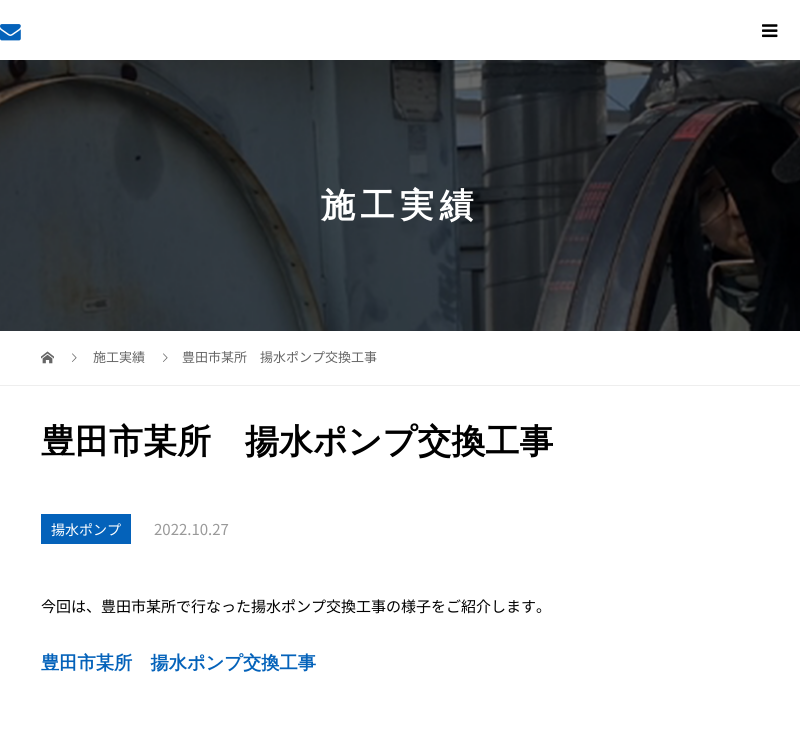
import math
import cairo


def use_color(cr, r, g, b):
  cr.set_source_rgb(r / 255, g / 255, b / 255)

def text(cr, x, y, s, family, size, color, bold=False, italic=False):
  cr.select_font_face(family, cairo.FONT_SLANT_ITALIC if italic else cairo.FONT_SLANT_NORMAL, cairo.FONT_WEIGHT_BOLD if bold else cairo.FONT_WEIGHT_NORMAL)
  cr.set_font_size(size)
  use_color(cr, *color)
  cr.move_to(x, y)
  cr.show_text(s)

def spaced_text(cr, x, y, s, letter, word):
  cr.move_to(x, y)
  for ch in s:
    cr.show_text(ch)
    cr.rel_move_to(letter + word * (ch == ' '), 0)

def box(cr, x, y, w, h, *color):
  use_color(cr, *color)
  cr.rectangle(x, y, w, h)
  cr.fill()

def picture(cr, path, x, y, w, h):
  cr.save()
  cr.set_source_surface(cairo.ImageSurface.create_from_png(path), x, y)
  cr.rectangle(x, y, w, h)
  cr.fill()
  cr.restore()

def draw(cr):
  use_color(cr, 255, 255, 255)
  cr.paint()
  picture(cr, "img_01.png", 0, 24, 21, 17)
  picture(cr, "img_02.png", 762, 24, 16, 14)
  picture(cr, "img_03.png", 0, 60, 800, 271)
  box(cr, 0, 385, 800, 1, 238, 238, 238)
  picture(cr, "img_04.png", 41, 351, 13, 13)
  picture(cr, "img_05.png", 72, 353, 5, 9)
  picture(cr, "img_05.png", 163, 353, 5, 9)
  box(cr, 41, 514, 90, 30, 4, 98, 186)
  cr.select_font_face("WenQuanYi Zen Hei", cairo.FONT_SLANT_NORMAL, cairo.FONT_WEIGHT_BOLD)
  cr.set_font_size(34)
  use_color(cr, 255, 255, 255)
  spaced_text(cr, 321, 217, "施工実績", 5.5, 0)
  text(cr, 93, 362, "施工実績", "Noto Sans JP Thin", 13, (102, 102, 102))
  text(cr, 182, 362, "豊田市某所　揚水ポンプ交換工事", "Noto Sans JP Thin", 13, (102, 102, 102))
  text(cr, 41, 453, "豊田市某所　揚水ポンプ交換工事", "WenQuanYi Zen Hei", 34, (0, 0, 0), bold=True)
  text(cr, 51, 535, "揚水ポンプ", "Noto Sans JP Thin", 14, (255, 255, 255))
  text(cr, 154, 535, "2022.10.27", "Noto Sans JP Thin", 15, (153, 153, 153))
  text(cr, 41, 612, "今回は、豊田市某所で行なった揚水ポンプ交換工事の様子をご紹介します。", "Noto Sans JP Thin", 15, (0, 0, 0))
  text(cr, 41, 669, "豊田市某所　揚水ポンプ交換工事", "WenQuanYi Zen Hei", 18.25, (4, 98, 186), bold=True)


surface = cairo.ImageSurface(cairo.FORMAT_RGB24, 800, 731)
cr = cairo.Context(surface)
options = cairo.FontOptions()
options.set_hint_metrics(cairo.HINT_METRICS_OFF)
options.set_hint_style(cairo.HINT_STYLE_NONE)
cr.set_font_options(options)
cr.set_miter_limit(4)
draw(cr)
surface.write_to_png("out.png")
